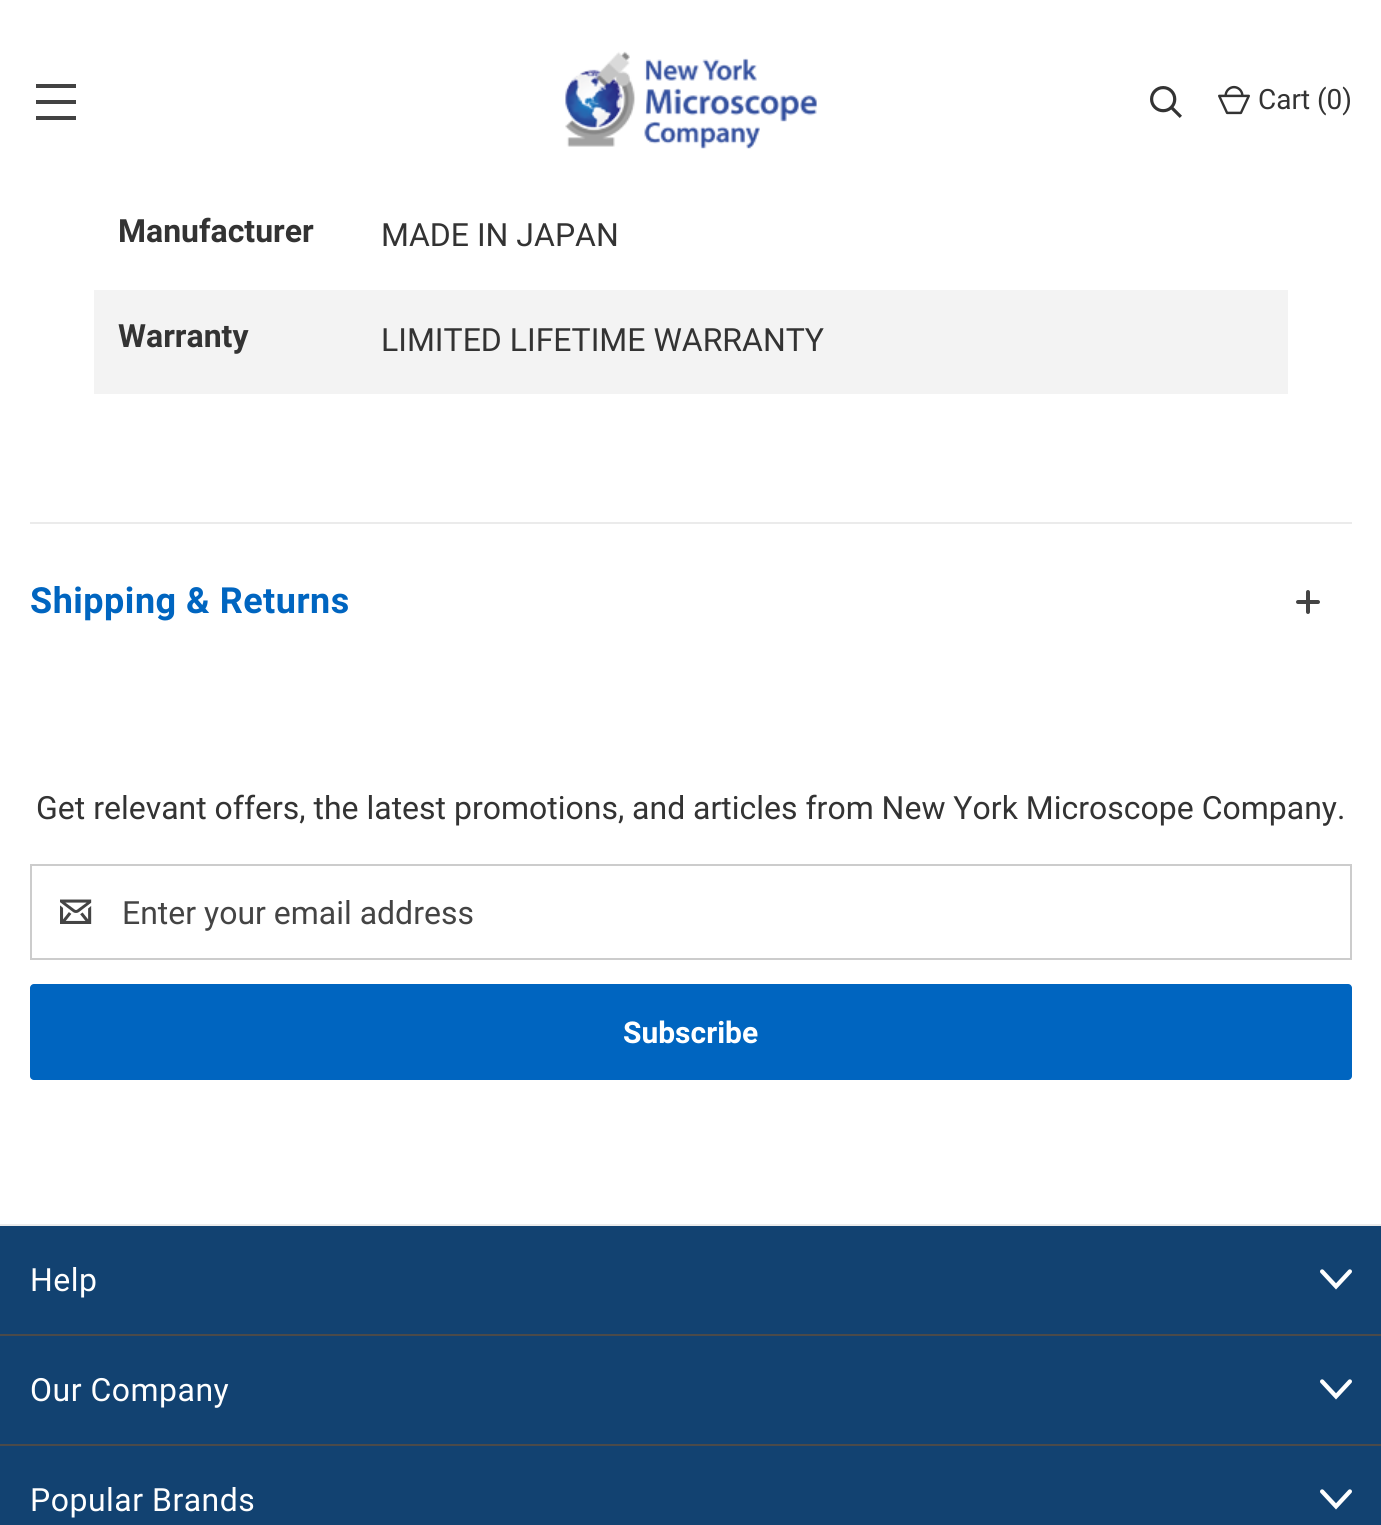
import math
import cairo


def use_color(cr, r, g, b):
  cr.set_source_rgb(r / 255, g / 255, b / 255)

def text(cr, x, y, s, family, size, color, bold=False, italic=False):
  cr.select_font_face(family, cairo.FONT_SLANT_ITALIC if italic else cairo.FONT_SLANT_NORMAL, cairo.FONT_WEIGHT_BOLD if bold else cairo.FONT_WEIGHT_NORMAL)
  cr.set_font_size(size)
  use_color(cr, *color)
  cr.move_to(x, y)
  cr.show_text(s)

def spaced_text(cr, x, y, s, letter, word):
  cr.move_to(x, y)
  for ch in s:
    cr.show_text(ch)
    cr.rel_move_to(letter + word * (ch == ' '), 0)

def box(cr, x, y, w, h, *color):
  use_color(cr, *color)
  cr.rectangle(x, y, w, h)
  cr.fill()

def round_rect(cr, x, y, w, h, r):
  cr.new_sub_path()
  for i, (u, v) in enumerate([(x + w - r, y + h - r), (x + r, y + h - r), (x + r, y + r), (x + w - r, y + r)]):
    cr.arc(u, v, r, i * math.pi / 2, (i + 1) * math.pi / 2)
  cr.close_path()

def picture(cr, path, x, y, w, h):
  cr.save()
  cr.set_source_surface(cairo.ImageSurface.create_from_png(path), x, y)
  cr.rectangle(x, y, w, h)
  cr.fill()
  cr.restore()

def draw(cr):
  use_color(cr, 255, 255, 255)
  cr.paint()
  box(cr, 36, 100, 40, 4, 66, 66, 66)
  box(cr, 36, 84, 40, 4, 66, 66, 66)
  box(cr, 36, 116, 40, 4, 66, 66, 66)
  picture(cr, "img_01.png", 565, 51, 252, 98)
  picture(cr, "img_02.png", 1150, 86, 32, 32)
  picture(cr, "img_03.png", 1218, 85, 32, 30)
  box(cr, 94, 290, 1194, 104, 243, 243, 243)
  box(cr, 30, 522, 1322, 2, 235, 235, 235)
  picture(cr, "img_04.png", 1296, 590, 24, 24)
  cr.rectangle(31, 865, 1320, 94)
  use_color(cr, 204, 204, 204)
  cr.stroke()
  picture(cr, "img_05.png", 60, 899, 32, 25)
  use_color(cr, 0, 101, 192)
  round_rect(cr, 30, 984, 1322, 96, 4)
  cr.fill()
  box(cr, 0, 1226, 1381, 299, 18, 66, 113)
  box(cr, 0, 1224, 1381, 2, 235, 235, 235)
  box(cr, 0, 1334, 1381, 2, 74, 74, 74)
  picture(cr, "img_06.png", 1320, 1269, 32, 21)
  box(cr, 0, 1444, 1381, 2, 74, 74, 74)
  picture(cr, "img_06.png", 1320, 1379, 32, 21)
  picture(cr, "img_06.png", 1320, 1489, 32, 21)
  text(cr, 1258, 109, "Cart (0)", "Roboto", 28, (51, 51, 51))
  text(cr, 118, 242, "Manufacturer", "Roboto", 32, (51, 51, 51), bold=True)
  text(cr, 381, 246, "MADE IN JAPAN", "Roboto", 32, (51, 51, 51))
  text(cr, 118, 347, "Warranty", "Roboto", 32, (51, 51, 51), bold=True)
  text(cr, 381, 351, "LIMITED LIFETIME WARRANTY", "Roboto", 32, (51, 51, 51))
  cr.select_font_face("Roboto", cairo.FONT_SLANT_NORMAL, cairo.FONT_WEIGHT_BOLD)
  cr.set_font_size(36)
  use_color(cr, 0, 101, 192)
  spaced_text(cr, 30, 613, "Shipping & Returns", 0.5, 0)
  text(cr, 36, 819, "Get relevant offers, the latest promotions, and articles from New York Microscope Company.", "Roboto", 32, (51, 51, 51))
  text(cr, 122, 924, "Enter your email address", "Roboto", 32, (68, 68, 68))
  text(cr, 623, 1043, "Subscribe", "Roboto", 30, (255, 255, 255), bold=True)
  cr.select_font_face("Roboto")
  cr.set_font_size(32)
  spaced_text(cr, 30, 1291, "Help", 0.5, 0)
  spaced_text(cr, 30, 1401, "Our Company", 0.5, 0)
  spaced_text(cr, 30, 1511, "Popular Brands", 0.5, 0)


surface = cairo.ImageSurface(cairo.FORMAT_RGB24, 1381, 1525)
cr = cairo.Context(surface)
options = cairo.FontOptions()
options.set_hint_metrics(cairo.HINT_METRICS_OFF)
options.set_hint_style(cairo.HINT_STYLE_NONE)
cr.set_font_options(options)
cr.set_miter_limit(4)
draw(cr)
surface.write_to_png("out.png")
